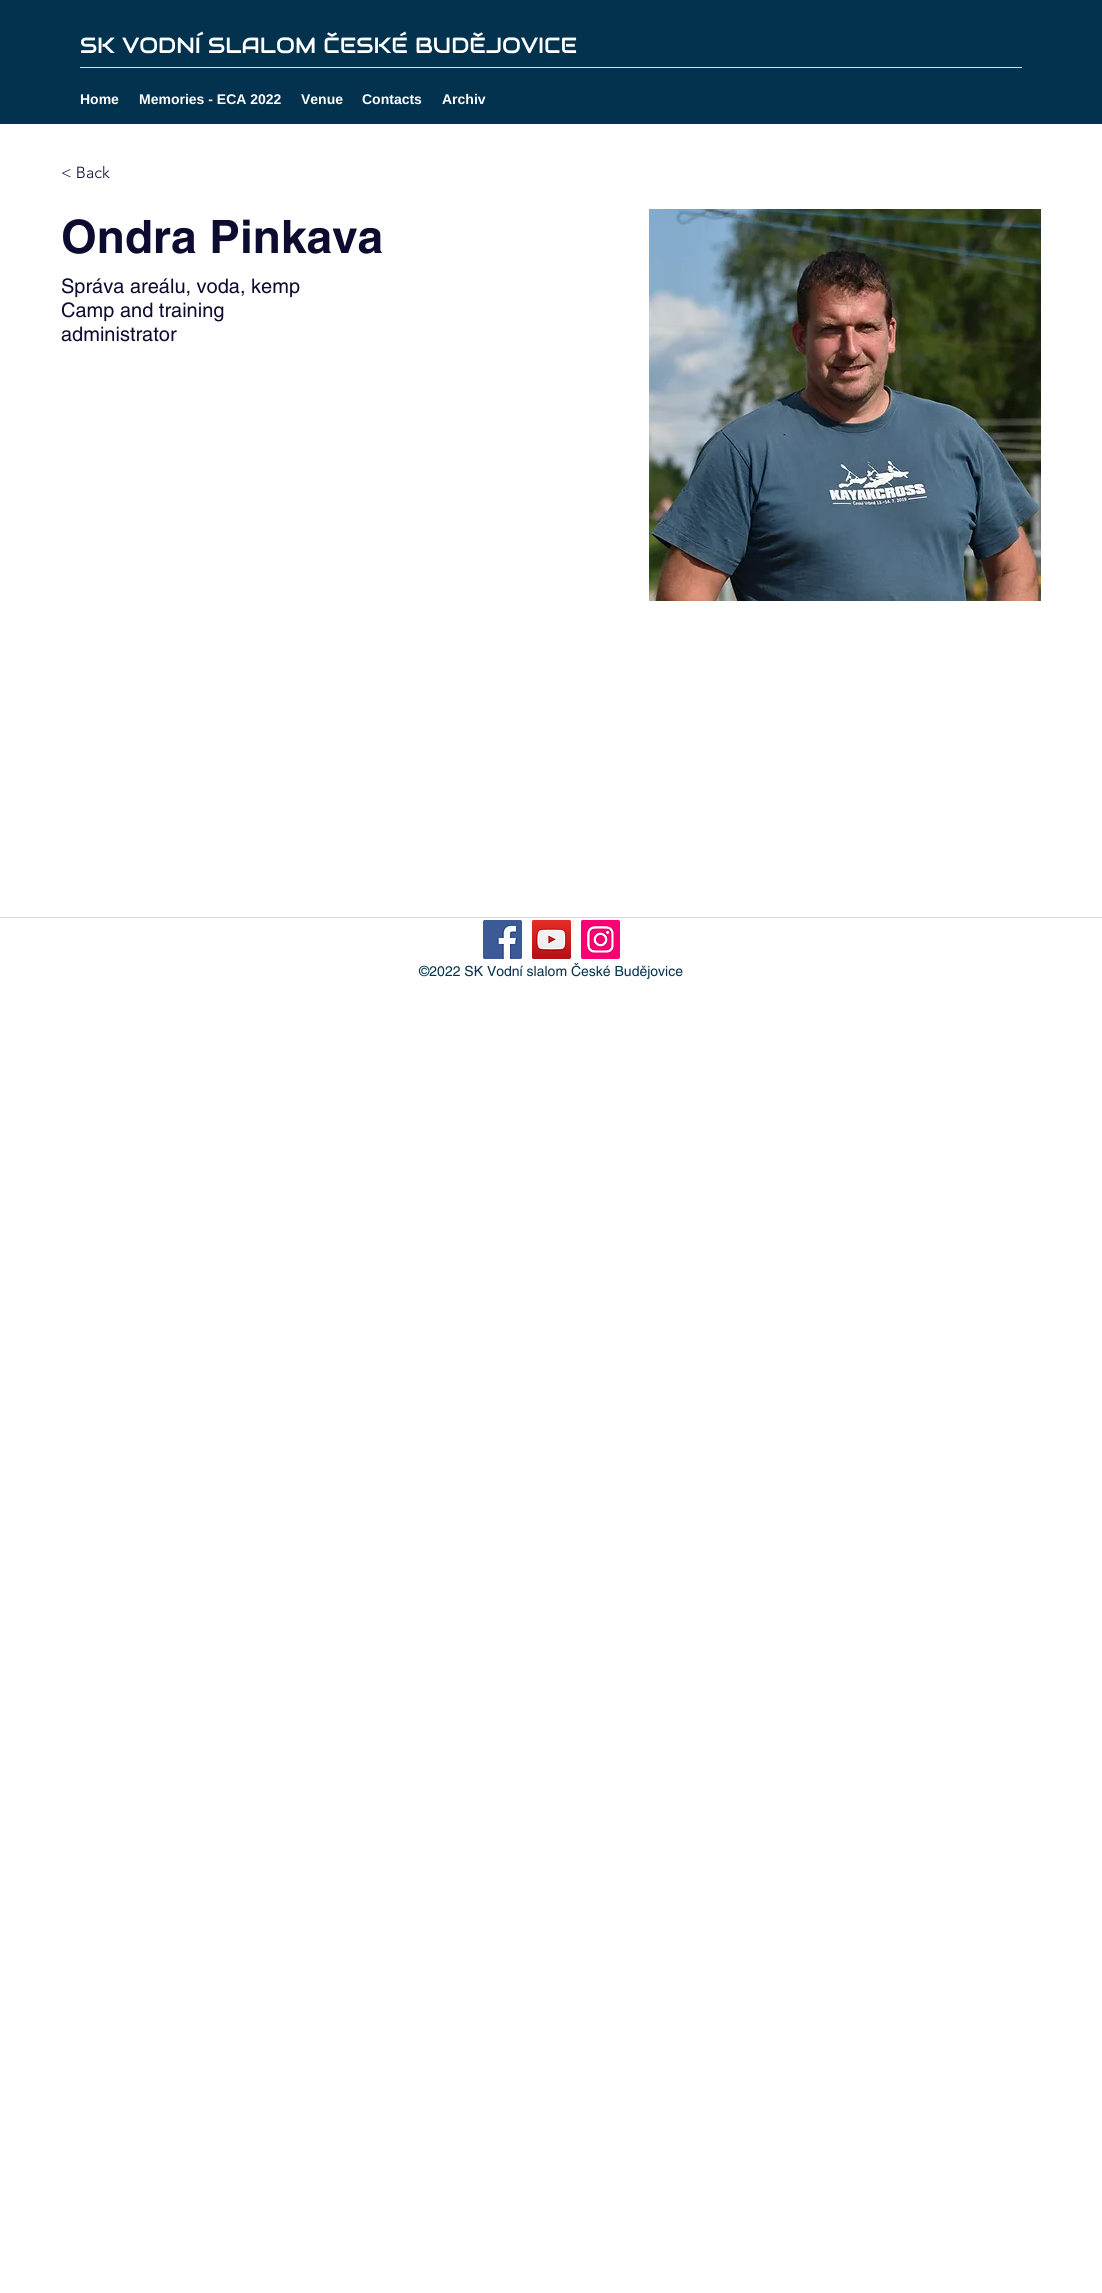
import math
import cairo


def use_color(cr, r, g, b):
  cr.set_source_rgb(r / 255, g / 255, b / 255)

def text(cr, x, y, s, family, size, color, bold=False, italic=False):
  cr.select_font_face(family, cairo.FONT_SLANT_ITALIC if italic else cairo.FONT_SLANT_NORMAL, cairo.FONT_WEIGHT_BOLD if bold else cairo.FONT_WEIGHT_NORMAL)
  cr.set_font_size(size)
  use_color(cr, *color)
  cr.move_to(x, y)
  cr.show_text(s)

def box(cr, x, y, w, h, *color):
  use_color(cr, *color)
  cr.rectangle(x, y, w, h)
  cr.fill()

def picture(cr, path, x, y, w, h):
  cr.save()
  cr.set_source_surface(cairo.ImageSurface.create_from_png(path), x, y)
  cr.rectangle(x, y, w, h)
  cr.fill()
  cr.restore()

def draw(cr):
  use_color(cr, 255, 255, 255)
  cr.paint()
  box(cr, 0, 0, 1102, 124, 3, 50, 79)
  box(cr, 80, 67, 942, 1, 217, 224, 229)
  picture(cr, "img_01.png", 649, 209, 392, 392)
  box(cr, 0, 917, 1102, 1, 218, 219, 224)
  picture(cr, "img_02.png", 483, 920, 39, 39)
  picture(cr, "img_03.png", 532, 920, 39, 39)
  picture(cr, "img_04.png", 581, 920, 39, 39)
  text(cr, 80, 53, "SK VODNÍ SLALOM ČESKÉ BUDĚJOVICE", "Audiowide", 22, (255, 255, 255))
  text(cr, 80, 104, "Home", "Liberation Sans", 14, (255, 255, 255), bold=True)
  text(cr, 139, 104, "Memories - ECA 2022", "Liberation Sans", 14, (255, 255, 255), bold=True)
  text(cr, 301, 104, "Venue", "Liberation Sans", 14, (255, 255, 255), bold=True)
  text(cr, 362, 104, "Contacts", "Liberation Sans", 14, (255, 255, 255), bold=True)
  text(cr, 442, 104, "Archiv", "Liberation Sans", 14, (255, 255, 255), bold=True)
  text(cr, 61, 178, "< Back", "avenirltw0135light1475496 Light", 16, (11, 12, 48))
  text(cr, 61, 253, "Ondra Pinkava", "helvetica", 46, (11, 12, 48), bold=True)
  text(cr, 61, 293, "Správa areálu, voda, kemp", "helvetica", 20, (11, 12, 48))
  text(cr, 61, 317, "Camp and training", "helvetica", 20, (11, 12, 48))
  text(cr, 61, 341, "administrator", "helvetica", 20, (11, 12, 48))
  text(cr, 419, 976, "©2022 SK Vodní slalom České Budějovice", "helvetica", 14, (3, 50, 79))


surface = cairo.ImageSurface(cairo.FORMAT_RGB24, 1102, 2293)
cr = cairo.Context(surface)
options = cairo.FontOptions()
options.set_hint_metrics(cairo.HINT_METRICS_OFF)
options.set_hint_style(cairo.HINT_STYLE_NONE)
cr.set_font_options(options)
cr.set_miter_limit(4)
draw(cr)
surface.write_to_png("out.png")
